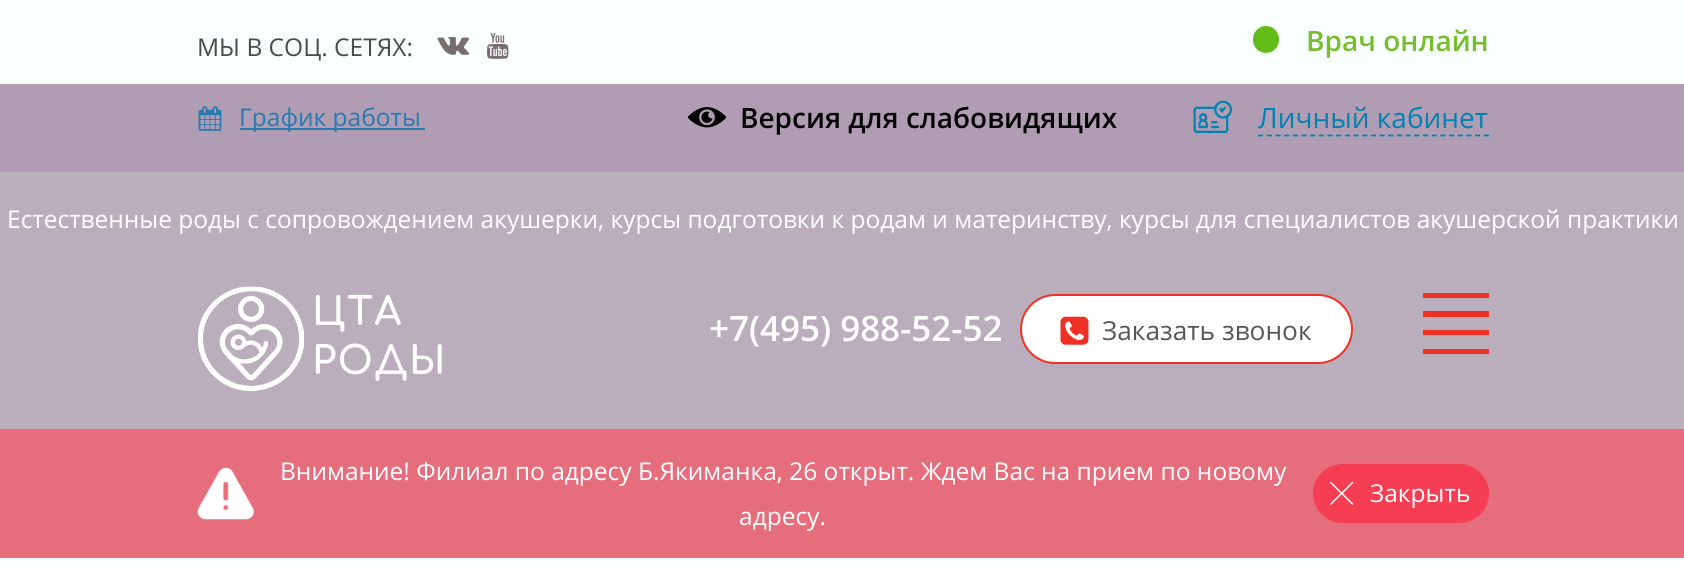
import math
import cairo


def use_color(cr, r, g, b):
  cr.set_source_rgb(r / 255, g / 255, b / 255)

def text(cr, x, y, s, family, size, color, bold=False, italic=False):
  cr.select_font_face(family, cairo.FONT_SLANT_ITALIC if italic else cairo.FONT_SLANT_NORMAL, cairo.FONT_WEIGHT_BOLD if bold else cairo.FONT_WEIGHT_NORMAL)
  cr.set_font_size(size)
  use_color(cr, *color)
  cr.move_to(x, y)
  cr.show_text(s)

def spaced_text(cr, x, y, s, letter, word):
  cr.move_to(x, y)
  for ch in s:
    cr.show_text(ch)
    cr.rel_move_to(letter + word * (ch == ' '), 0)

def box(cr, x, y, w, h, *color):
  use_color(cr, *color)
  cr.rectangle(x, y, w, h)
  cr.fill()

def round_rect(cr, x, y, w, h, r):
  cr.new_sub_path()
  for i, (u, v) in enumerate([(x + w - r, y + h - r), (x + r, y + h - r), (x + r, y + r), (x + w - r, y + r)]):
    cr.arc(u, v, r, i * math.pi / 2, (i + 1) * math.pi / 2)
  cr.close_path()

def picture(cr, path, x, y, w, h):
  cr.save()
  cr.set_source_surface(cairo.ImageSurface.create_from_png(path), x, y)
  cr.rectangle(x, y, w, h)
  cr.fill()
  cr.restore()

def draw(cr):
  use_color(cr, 249, 254, 255)
  cr.paint()
  picture(cr, "img_01.png", 437, 37, 32, 18)
  picture(cr, "img_02.png", 487, 33, 22, 26)
  use_color(cr, 98, 189, 25)
  round_rect(cr, 1253, 26, 26, 27, 13)
  cr.fill()
  box(cr, 0, 172, 1684, 257, 186, 174, 189)
  box(cr, 0, 84, 1684, 88, 176, 157, 180)
  picture(cr, "img_03.png", 198, 106, 24, 25)
  box(cr, 240, 128, 185, 2, 39, 121, 177)
  picture(cr, "img_04.png", 688, 107, 38, 21)
  picture(cr, "img_05.png", 1193, 100, 39, 33)
  cr.new_path()
  cr.move_to(1258, 135.5)
  cr.line_to(1489, 135.5)
  use_color(cr, 0, 130, 178)
  cr.set_line_width(1.8)
  cr.set_dash([5.25, 3.43])
  cr.stroke()
  picture(cr, "img_06.png", 198, 286, 106, 105)
  use_color(cr, 255, 255, 255)
  round_rect(cr, 1021, 295, 331, 68, 34)
  cr.fill_preserve()
  use_color(cr, 238, 49, 36)
  cr.set_line_width(2)
  cr.set_dash([])
  cr.stroke()
  picture(cr, "img_07.png", 1060, 316, 29, 29)
  cr.new_path()
  cr.move_to(1423, 293)
  cr.line_to(1489, 293)
  cr.line_to(1489, 298)
  cr.line_to(1423, 298)
  cr.close_path()
  cr.move_to(1423, 311)
  cr.line_to(1489, 311)
  cr.line_to(1489, 317)
  cr.line_to(1423, 317)
  cr.close_path()
  cr.move_to(1423, 330)
  cr.line_to(1489, 330)
  cr.line_to(1489, 335)
  cr.line_to(1423, 335)
  cr.close_path()
  cr.move_to(1423, 349)
  cr.line_to(1489, 349)
  cr.line_to(1489, 354)
  cr.line_to(1423, 354)
  cr.close_path()
  cr.fill()
  box(cr, 0, 429, 1684, 129, 230, 110, 124)
  picture(cr, "img_08.png", 197, 467, 57, 53)
  use_color(cr, 245, 62, 84)
  round_rect(cr, 1313, 464, 176, 59, 29.5)
  cr.fill()
  text(cr, 197, 56, "МЫ В СОЦ. СЕТЯХ:", "Open Sans", 24.5, (76, 75, 75))
  text(cr, 1306, 51, "Врач онлайн", "Open Sans SemiBold", 28, (119, 189, 45))
  text(cr, 239, 126, "График работы", "Open Sans", 24.5, (39, 121, 177))
  text(cr, 740, 128, "Версия для слабовидящих", "Open Sans SemiBold", 28, (0, 0, 0))
  text(cr, 1258, 128, "Личный кабинет", "Open Sans", 28, (0, 130, 178))
  text(cr, 7, 228, "Естественные роды с сопровождением акушерки, курсы подготовки к родам и материнству, курсы для специалистов акушерской практики", "Open Sans", 24.5, (255, 255, 255))
  cr.select_font_face("Comfortaa", cairo.FONT_SLANT_NORMAL, cairo.FONT_WEIGHT_BOLD)
  cr.set_font_size(38.5)
  spaced_text(cr, 312, 325, "ЦТА", 1.5, 0)
  spaced_text(cr, 312, 374, "РОДЫ", 1.5, 0)
  text(cr, 709, 341, "+7(495) 988-52-52", "Open Sans SemiBold", 35, (255, 255, 255))
  text(cr, 1102, 340, "Заказать звонок", "Open Sans", 26.25, (87, 87, 87))
  text(cr, 280, 480, "Внимание! Филиал по адресу Б.Якиманка, 26 открыт. Ждем Вас на прием по новому", "Open Sans", 24.5, (255, 255, 255))
  text(cr, 739, 525, "адресу.", "Open Sans", 24.5, (255, 255, 255))
  text(cr, 1330, 502, "฀", "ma", 23, (255, 255, 255))
  text(cr, 1370, 502, "Закрыть", "Open Sans", 24.5, (255, 255, 255))


surface = cairo.ImageSurface(cairo.FORMAT_RGB24, 1684, 565)
cr = cairo.Context(surface)
options = cairo.FontOptions()
options.set_hint_metrics(cairo.HINT_METRICS_OFF)
options.set_hint_style(cairo.HINT_STYLE_NONE)
cr.set_font_options(options)
cr.set_miter_limit(4)
draw(cr)
surface.write_to_png("out.png")
